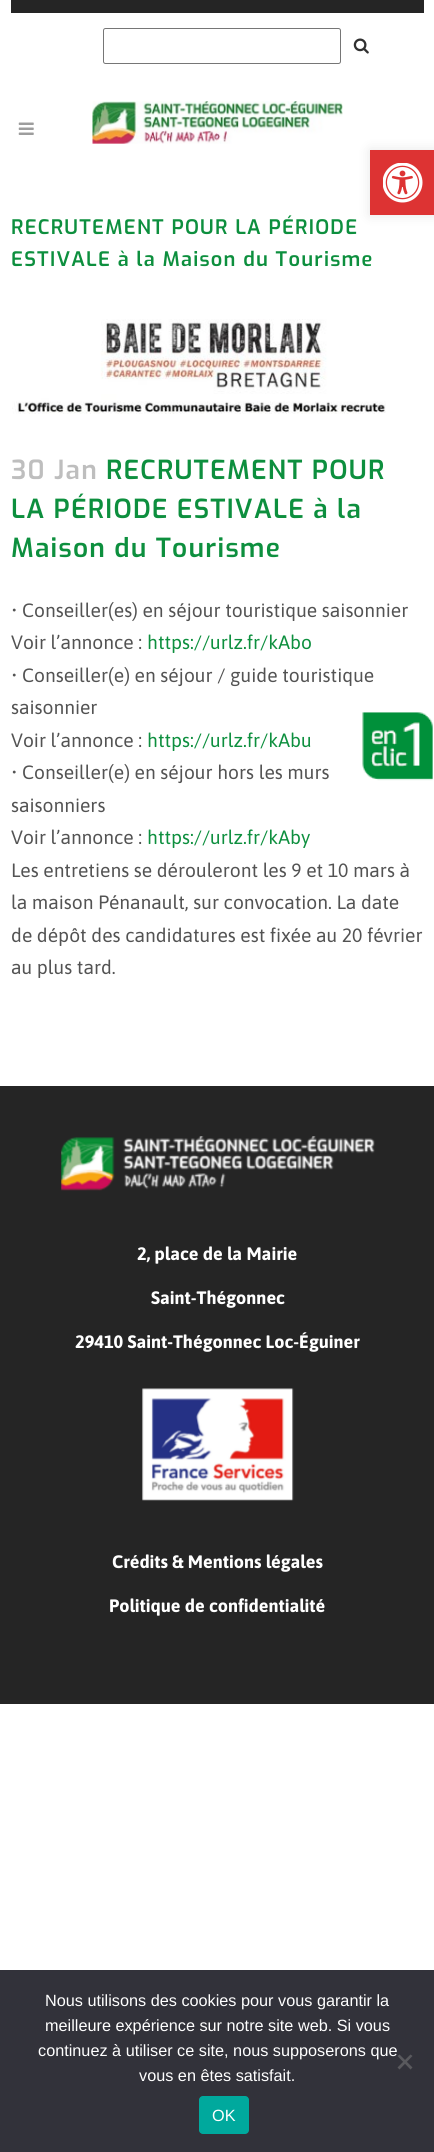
import math
import cairo


def use_color(cr, r, g, b):
  cr.set_source_rgb(r / 255, g / 255, b / 255)

def text(cr, x, y, s, family, size, color, bold=False, italic=False):
  cr.select_font_face(family, cairo.FONT_SLANT_ITALIC if italic else cairo.FONT_SLANT_NORMAL, cairo.FONT_WEIGHT_BOLD if bold else cairo.FONT_WEIGHT_NORMAL)
  cr.set_font_size(size)
  use_color(cr, *color)
  cr.move_to(x, y)
  cr.show_text(s)

def spaced_text(cr, x, y, s, letter, word):
  cr.move_to(x, y)
  for ch in s:
    cr.show_text(ch)
    cr.rel_move_to(letter + word * (ch == ' '), 0)

def box(cr, x, y, w, h, *color):
  use_color(cr, *color)
  cr.rectangle(x, y, w, h)
  cr.fill()

def round_rect(cr, x, y, w, h, r):
  cr.new_sub_path()
  for i, (u, v) in enumerate([(x + w - r, y + h - r), (x + r, y + h - r), (x + r, y + r), (x + w - r, y + r)]):
    cr.arc(u, v, r, i * math.pi / 2, (i + 1) * math.pi / 2)
  cr.close_path()

def shadow(cr, x, y, w, h, r, blur, alpha):
  cr.push_group_with_content(cairo.CONTENT_ALPHA)
  cr.set_operator(cairo.OPERATOR_SOURCE)
  for i in range(15, -16, -2):
    e = blur * i / 6
    if min(w, h) + 2 * e > 0:
      cr.set_source_rgba(0, 0, 0, alpha * math.erfc((i - 1) / 8.5) / 2)
      round_rect(cr, x - e, y - e, w + 2 * e, h + 2 * e, max(0, min(r + e + blur * .6, min(w, h) / 2 + e)))
      cr.fill()
  cr.mask(cr.pop_group())

def picture(cr, path, x, y, w, h):
  cr.save()
  cr.set_source_surface(cairo.ImageSurface.create_from_png(path), x, y)
  cr.rectangle(x, y, w, h)
  cr.fill()
  cr.restore()

def draw(cr):
  use_color(cr, 255, 255, 255)
  cr.paint()
  use_color(cr, 0, 0, 0)
  shadow(cr, 370, 150, 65, 65, 0, 6, 0.1)
  box(cr, 370, 150, 64, 65, 221, 51, 51)
  picture(cr, "img_01.png", 383, 163, 40, 40)
  box(cr, 11, 0, 413, 13, 37, 37, 37)
  round_rect(cr, 103.5, 28.5, 237, 35, 2)
  use_color(cr, 118, 118, 118)
  cr.set_line_width(1)
  cr.stroke()
  picture(cr, "img_02.png", 353, 38, 16, 16)
  picture(cr, "img_03.png", 18, 122, 16, 13)
  picture(cr, "img_04.png", 92, 101, 251, 43)
  picture(cr, "img_05.png", 362, 712, 71, 69)
  picture(cr, "img_06.png", 12, 319, 374, 95)
  box(cr, 0, 1086, 434, 618, 37, 37, 37)
  picture(cr, "img_07.png", 61, 1136, 314, 55)
  picture(cr, "img_08.png", 142, 1388, 152, 113)
  box(cr, 0, 1970, 434, 182, 50, 50, 58)
  use_color(cr, 89, 89, 93)
  cr.new_path()
  cr.move_to(410.5, 2054.5)
  cr.line_to(412.5, 2056)
  cr.line_to(399.5, 2069.5)
  cr.line_to(397.5, 2067.5)
  cr.close_path()
  cr.fill()
  cr.new_path()
  cr.move_to(397.5, 2056)
  cr.line_to(399.5, 2054.5)
  cr.line_to(412.5, 2067.5)
  cr.line_to(410.5, 2069.5)
  cr.close_path()
  cr.fill()
  use_color(cr, 0, 169, 157)
  round_rect(cr, 199, 2096, 50, 38, 4)
  cr.fill()
  cr.select_font_face("Exo SemiBold")
  cr.set_font_size(20)
  use_color(cr, 13, 143, 62)
  spaced_text(cr, 11, 234, "RECRUTEMENT POUR LA PÉRIODE", 1.25, 0)
  spaced_text(cr, 11, 266, "ESTIVALE à la Maison du Tourisme", 1.25, 0)
  cr.set_font_size(26.25)
  use_color(cr, 190, 190, 190)
  spaced_text(cr, 11, 479, "30 Jan", 1.25, 0)
  use_color(cr, 13, 143, 62)
  spaced_text(cr, 106, 479, "RECRUTEMENT POUR", 1.25, 0)
  spaced_text(cr, 11, 518, "LA PÉRIODE ESTIVALE à la", 1.25, 0)
  spaced_text(cr, 11, 557, "Maison du Tourisme", 1.25, 0)
  text(cr, 11, 617, "• Conseiller(es) en séjour touristique saisonnier", "Asap", 19.25, (83, 83, 83))
  text(cr, 11, 649, "Voir l’annonce :", "Asap", 19.25, (83, 83, 83))
  text(cr, 147, 649, "https://urlz.fr/kAbo", "Asap", 19.25, (13, 143, 62))
  text(cr, 11, 682, "• Conseiller(e) en séjour / guide touristique", "Asap", 19.25, (83, 83, 83))
  text(cr, 11, 714, "saisonnier", "Asap", 19.25, (83, 83, 83))
  text(cr, 11, 747, "Voir l’annonce :", "Asap", 19.25, (83, 83, 83))
  text(cr, 147, 747, "https://urlz.fr/kAbu", "Asap", 19.25, (13, 143, 62))
  text(cr, 11, 779, "• Conseiller(e) en séjour hors les murs", "Asap", 19.25, (83, 83, 83))
  text(cr, 11, 812, "saisonniers", "Asap", 19.25, (83, 83, 83))
  text(cr, 11, 844, "Voir l’annonce :", "Asap", 19.25, (83, 83, 83))
  text(cr, 147, 844, "https://urlz.fr/kAby", "Asap", 19.25, (13, 143, 62))
  text(cr, 11, 877, "Les entretiens se dérouleront les 9 et 10 mars à", "Asap", 19.25, (83, 83, 83))
  text(cr, 11, 909, "la maison Pénanault, sur convocation. La date", "Asap", 19.25, (83, 83, 83))
  text(cr, 11, 942, "de dépôt des candidatures est fixée au 20 février", "Asap", 19.25, (83, 83, 83))
  text(cr, 11, 974, "au plus tard.", "Asap", 19.25, (83, 83, 83))
  text(cr, 137, 1260, "2, place de la Mairie", "Asap", 18, (255, 255, 255), bold=True)
  text(cr, 151, 1304, "Saint-Thégonnec", "Asap", 18, (255, 255, 255), bold=True)
  text(cr, 75, 1348, "29410 Saint-Thégonnec Loc-Éguiner", "Asap", 18, (255, 255, 255), bold=True)
  text(cr, 112, 1568, "Crédits & Mentions légales", "Asap", 18, (255, 255, 255), bold=True)
  text(cr, 109, 1612, "Politique de confidentialité", "Asap", 18, (255, 255, 255), bold=True)
  text(cr, 45, 2006, "Nous utilisons des cookies pour vous garantir la", "Liberation Sans", 16.25, (255, 255, 255))
  text(cr, 45, 2031, "meilleure expérience sur notre site web. Si vous", "Liberation Sans", 16.25, (255, 255, 255))
  text(cr, 38, 2056, "continuez à utiliser ce site, nous supposerons que", "Liberation Sans", 16.25, (255, 255, 255))
  text(cr, 139, 2081, "vous en êtes satisfait.", "Liberation Sans", 16.25, (255, 255, 255))
  text(cr, 212, 2121, "OK", "Liberation Sans", 16.25, (255, 255, 255))


surface = cairo.ImageSurface(cairo.FORMAT_RGB24, 434, 2152)
cr = cairo.Context(surface)
options = cairo.FontOptions()
options.set_hint_metrics(cairo.HINT_METRICS_OFF)
options.set_hint_style(cairo.HINT_STYLE_NONE)
cr.set_font_options(options)
cr.set_miter_limit(4)
draw(cr)
surface.write_to_png("out.png")
